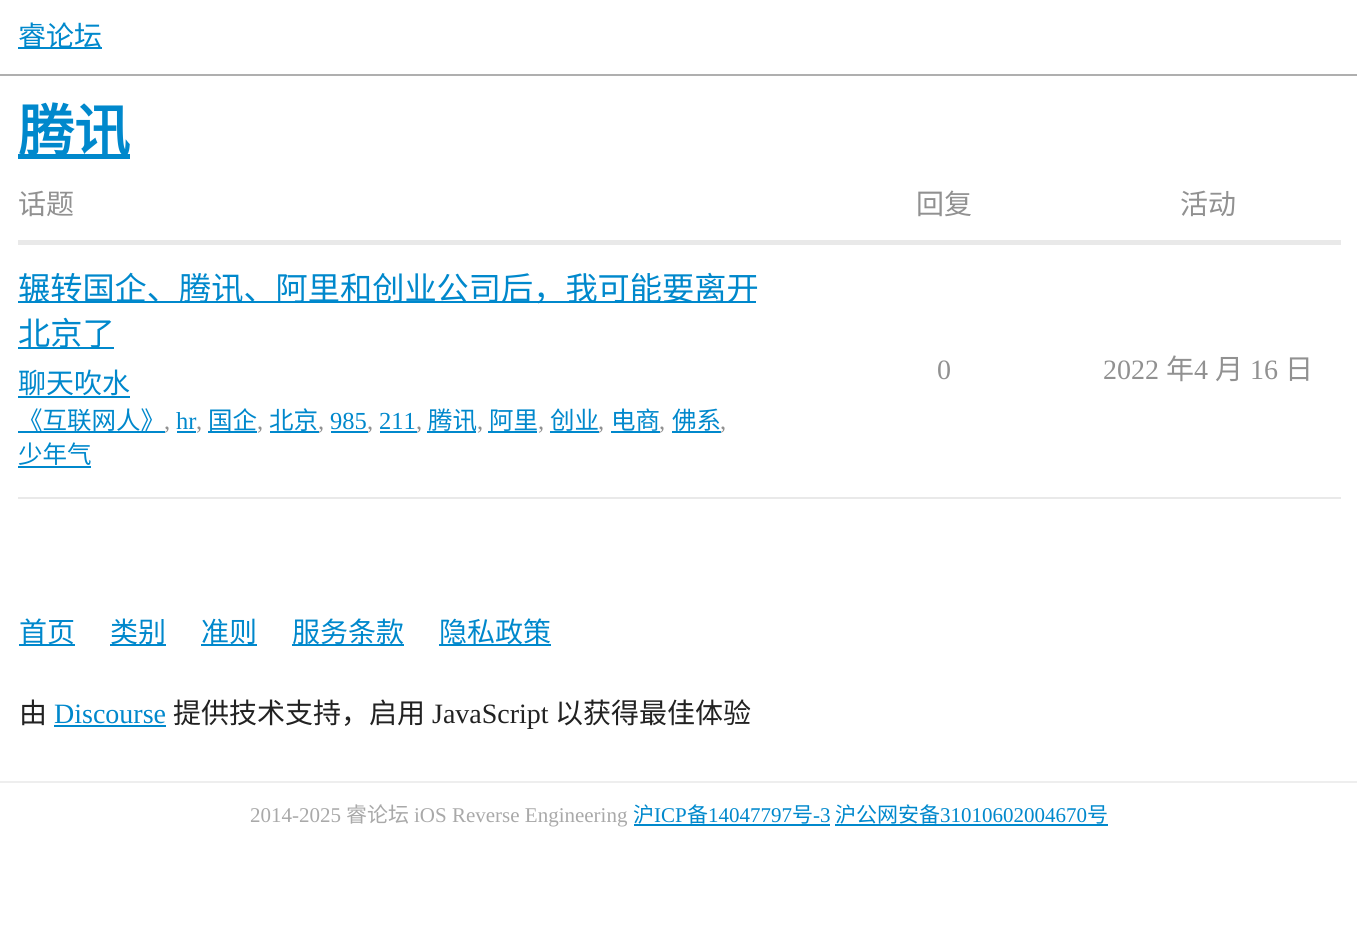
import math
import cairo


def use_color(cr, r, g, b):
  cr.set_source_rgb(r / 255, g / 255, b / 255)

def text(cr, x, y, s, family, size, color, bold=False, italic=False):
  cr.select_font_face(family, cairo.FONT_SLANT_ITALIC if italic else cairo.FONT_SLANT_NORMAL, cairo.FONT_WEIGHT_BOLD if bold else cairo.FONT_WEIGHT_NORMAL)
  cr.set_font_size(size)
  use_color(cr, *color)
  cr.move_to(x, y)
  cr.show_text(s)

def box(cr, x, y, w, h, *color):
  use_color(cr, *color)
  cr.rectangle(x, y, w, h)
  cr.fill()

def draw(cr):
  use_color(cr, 255, 255, 255)
  cr.paint()
  box(cr, 0, 74, 1357, 2, 175, 175, 175)
  box(cr, 18, 47, 84, 2, 0, 136, 204)
  box(cr, 18, 154, 112, 5, 0, 136, 204)
  box(cr, 18, 240, 1323, 5, 233, 233, 233)
  box(cr, 18, 497, 1323, 2, 233, 233, 233)
  box(cr, 18, 301, 738, 2, 0, 136, 204)
  box(cr, 18, 347, 96, 2, 0, 136, 204)
  box(cr, 18, 396, 112, 2, 0, 136, 204)
  box(cr, 177, 431, 19, 2, 0, 136, 204)
  box(cr, 208, 431, 49, 2, 0, 136, 204)
  box(cr, 270, 431, 49, 2, 0, 136, 204)
  box(cr, 427, 431, 49, 2, 0, 136, 204)
  box(cr, 488, 431, 49, 2, 0, 136, 204)
  box(cr, 550, 431, 49, 2, 0, 136, 204)
  box(cr, 611, 431, 49, 2, 0, 136, 204)
  box(cr, 672, 431, 49, 2, 0, 136, 204)
  box(cr, 18, 466, 73, 2, 0, 136, 204)
  box(cr, 19, 644, 56, 2, 0, 136, 204)
  box(cr, 110, 644, 56, 2, 0, 136, 204)
  box(cr, 201, 644, 56, 2, 0, 136, 204)
  box(cr, 292, 644, 112, 2, 0, 136, 204)
  box(cr, 439, 644, 112, 2, 0, 136, 204)
  box(cr, 54, 725, 112, 2, 0, 136, 204)
  box(cr, 0, 781, 1357, 2, 238, 238, 238)
  box(cr, 634, 824, 196, 2, 0, 136, 204)
  box(cr, 835, 824, 273, 2, 0, 136, 204)
  text(cr, 18, 46, "睿论坛", "Noto Sans CJK SC", 28, (0, 136, 204))
  text(cr, 18, 151, "腾讯", "Noto Sans CJK SC", 56, (0, 136, 204), bold=True)
  text(cr, 18, 214, "话题", "Noto Sans CJK SC", 28, (145, 145, 145))
  text(cr, 916, 214, "回复", "Noto Sans CJK SC", 28, (145, 145, 145))
  text(cr, 1180, 214, "活动", "Noto Sans CJK SC", 28, (145, 145, 145))
  text(cr, 18, 300, "辗转国企、腾讯、阿里和创业公司后，我可能要离开", "Noto Sans CJK SC", 32.2, (0, 136, 204))
  text(cr, 18, 345, "北京了", "Noto Sans CJK SC", 32.2, (0, 136, 204))
  text(cr, 18, 393, "聊天吹水", "Noto Sans CJK SC", 28, (0, 136, 204))
  text(cr, 164, 429, ",", "Liberation Serif", 24.5, (145, 145, 145))
  box(cr, 18, 431, 147, 2, 0, 136, 204)
  text(cr, 18, 429, "《互联网人》", "Noto Sans CJK SC", 24.5, (0, 136, 204))
  text(cr, 176, 429, "hr", "Liberation Serif", 24.5, (0, 136, 204))
  text(cr, 196, 429, ",", "Liberation Serif", 24.5, (145, 145, 145))
  text(cr, 208, 429, "国企", "Noto Sans CJK SC", 24.5, (0, 136, 204))
  text(cr, 257, 429, ",", "Liberation Serif", 24.5, (145, 145, 145))
  text(cr, 269, 429, "北京", "Noto Sans CJK SC", 24.5, (0, 136, 204))
  text(cr, 318, 429, ",", "Liberation Serif", 24.5, (145, 145, 145))
  text(cr, 330, 429, "985", "Liberation Serif", 24.5, (0, 136, 204))
  text(cr, 367, 429, ",", "Liberation Serif", 24.5, (145, 145, 145))
  box(cr, 331, 431, 37, 2, 0, 136, 204)
  text(cr, 379, 429, "211", "Liberation Serif", 24.5, (0, 136, 204))
  text(cr, 416, 429, ",", "Liberation Serif", 24.5, (145, 145, 145))
  box(cr, 380, 431, 37, 2, 0, 136, 204)
  text(cr, 428, 429, "腾讯", "Noto Sans CJK SC", 24.5, (0, 136, 204))
  text(cr, 477, 429, ",", "Liberation Serif", 24.5, (145, 145, 145))
  text(cr, 489, 429, "阿里", "Noto Sans CJK SC", 24.5, (0, 136, 204))
  text(cr, 538, 429, ",", "Liberation Serif", 24.5, (145, 145, 145))
  text(cr, 550, 429, "创业", "Noto Sans CJK SC", 24.5, (0, 136, 204))
  text(cr, 598, 429, ",", "Liberation Serif", 24.5, (145, 145, 145))
  text(cr, 611, 429, "电商", "Noto Sans CJK SC", 24.5, (0, 136, 204))
  text(cr, 659, 429, ",", "Liberation Serif", 24.5, (145, 145, 145))
  text(cr, 672, 429, "佛系", "Noto Sans CJK SC", 24.5, (0, 136, 204))
  text(cr, 720, 429, ",", "Liberation Serif", 24.5, (145, 145, 145))
  text(cr, 18, 463, "少年气", "Noto Sans CJK SC", 24.5, (0, 136, 204))
  text(cr, 937, 379, "0", "Liberation Serif", 28, (145, 145, 145))
  text(cr, 1103, 379, "2022", "Liberation Serif", 28, (145, 145, 145))
  text(cr, 1166, 379, "年", "Noto Sans CJK SC", 28, (145, 145, 145))
  text(cr, 1194, 379, "4", "Liberation Serif", 28, (145, 145, 145))
  text(cr, 1215, 379, "月", "Noto Sans CJK SC", 28, (145, 145, 145))
  text(cr, 1250, 379, "16", "Liberation Serif", 28, (145, 145, 145))
  text(cr, 1285, 379, "日", "Noto Sans CJK SC", 28, (145, 145, 145))
  text(cr, 19, 642, "首页", "Noto Sans CJK SC", 28, (0, 136, 204))
  text(cr, 110, 642, "类别", "Noto Sans CJK SC", 28, (0, 136, 204))
  text(cr, 201, 642, "准则", "Noto Sans CJK SC", 28, (0, 136, 204))
  text(cr, 292, 642, "服务条款", "Noto Sans CJK SC", 28, (0, 136, 204))
  text(cr, 439, 642, "隐私政策", "Noto Sans CJK SC", 28, (0, 136, 204))
  text(cr, 19, 723, "由", "Noto Sans CJK SC", 28, (34, 34, 34))
  text(cr, 54, 723, "Discourse", "Liberation Serif", 28, (0, 136, 204))
  text(cr, 173, 723, "提供技术支持，启用", "Noto Sans CJK SC", 28, (34, 34, 34))
  text(cr, 432, 723, "JavaScript", "Liberation Serif", 28, (34, 34, 34))
  text(cr, 555, 723, "以获得最佳体验", "Noto Sans CJK SC", 28, (34, 34, 34))
  text(cr, 250, 822, "2014-2025", "Liberation Serif", 21, (169, 169, 169))
  text(cr, 346, 822, "睿论坛", "Noto Sans CJK SC", 21, (169, 169, 169))
  text(cr, 414, 822, "iOS Reverse Engineering", "Liberation Serif", 21, (169, 169, 169))
  text(cr, 633, 822, "沪", "Noto Sans CJK SC", 21, (0, 136, 204))
  text(cr, 654, 822, "ICP", "Liberation Serif", 21, (0, 136, 204))
  text(cr, 687, 822, "备", "Noto Sans CJK SC", 21, (0, 136, 204))
  text(cr, 708, 822, "14047797", "Liberation Serif", 21, (0, 136, 204))
  text(cr, 792, 822, "号", "Noto Sans CJK SC", 21, (0, 136, 204))
  text(cr, 813, 822, "-3", "Liberation Serif", 21, (0, 136, 204))
  text(cr, 835, 822, "沪公网安备", "Noto Sans CJK SC", 21, (0, 136, 204))
  text(cr, 940, 822, "31010602004670", "Liberation Serif", 21, (0, 136, 204))
  text(cr, 1087, 822, "号", "Noto Sans CJK SC", 21, (0, 136, 204))


surface = cairo.ImageSurface(cairo.FORMAT_RGB24, 1357, 933)
cr = cairo.Context(surface)
options = cairo.FontOptions()
options.set_hint_metrics(cairo.HINT_METRICS_OFF)
options.set_hint_style(cairo.HINT_STYLE_NONE)
cr.set_font_options(options)
cr.set_miter_limit(4)
draw(cr)
surface.write_to_png("out.png")
